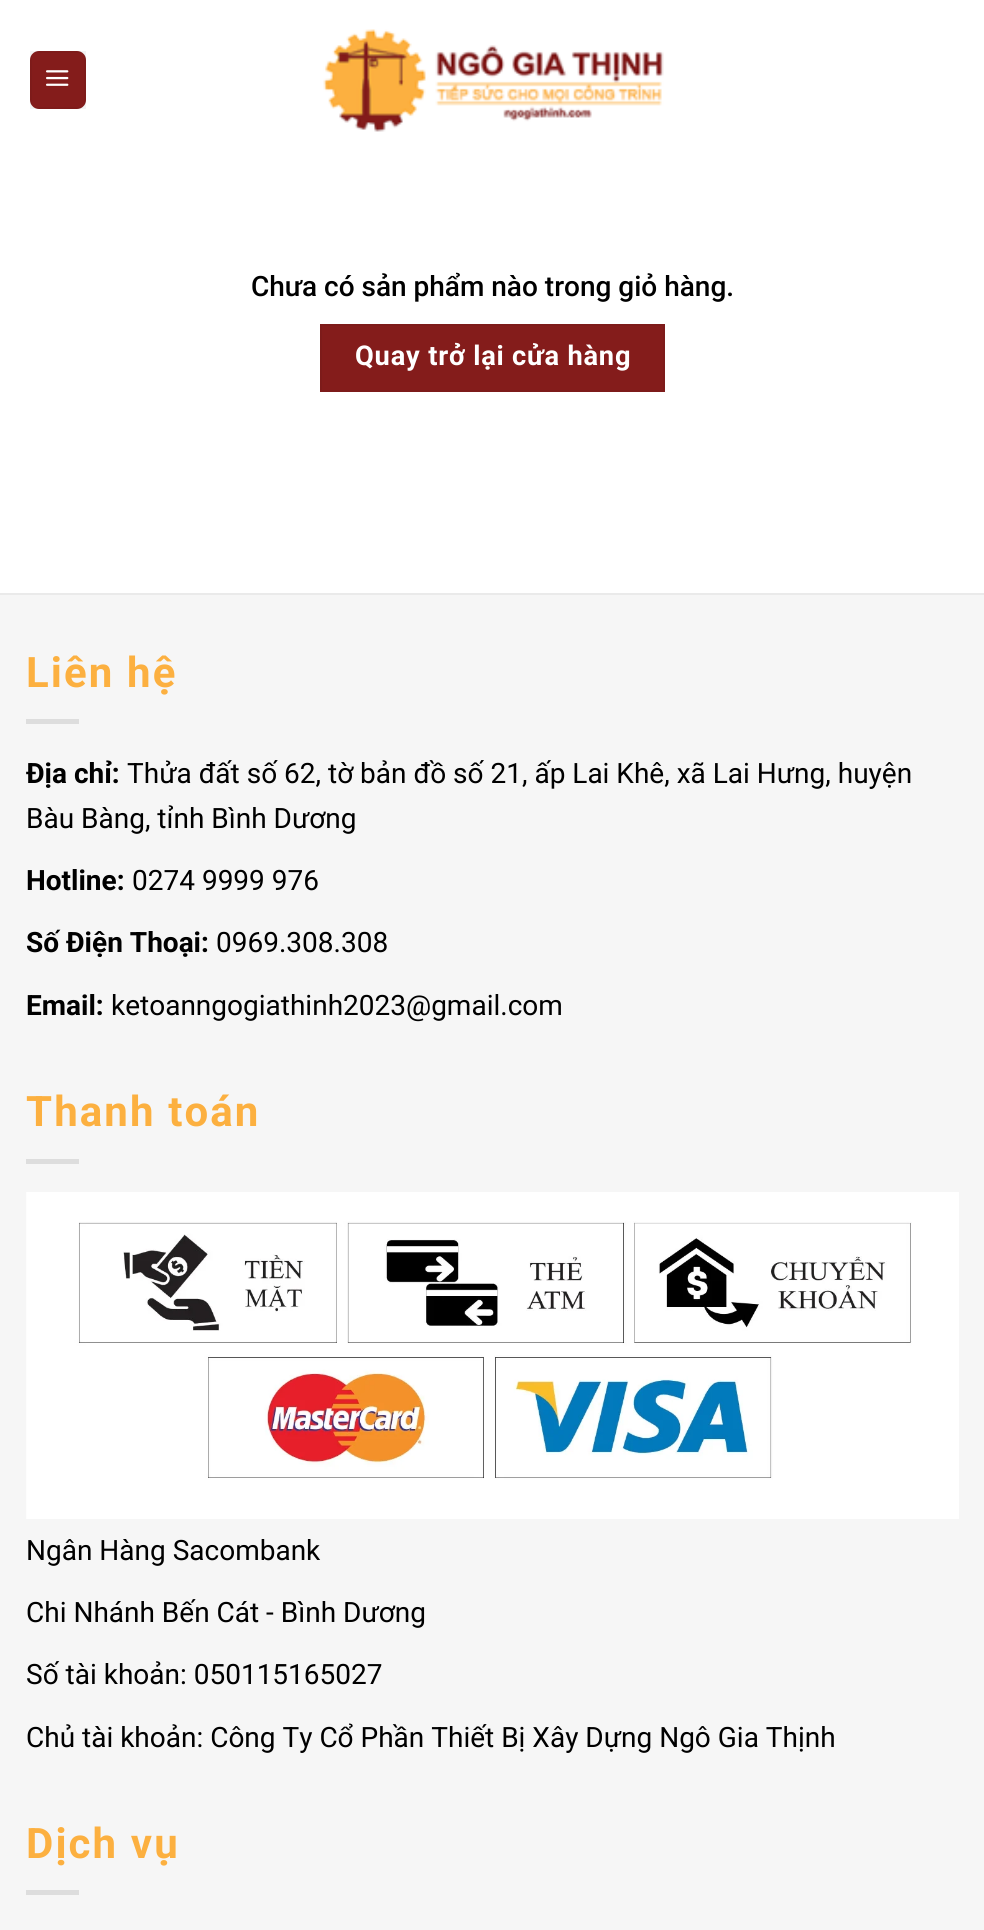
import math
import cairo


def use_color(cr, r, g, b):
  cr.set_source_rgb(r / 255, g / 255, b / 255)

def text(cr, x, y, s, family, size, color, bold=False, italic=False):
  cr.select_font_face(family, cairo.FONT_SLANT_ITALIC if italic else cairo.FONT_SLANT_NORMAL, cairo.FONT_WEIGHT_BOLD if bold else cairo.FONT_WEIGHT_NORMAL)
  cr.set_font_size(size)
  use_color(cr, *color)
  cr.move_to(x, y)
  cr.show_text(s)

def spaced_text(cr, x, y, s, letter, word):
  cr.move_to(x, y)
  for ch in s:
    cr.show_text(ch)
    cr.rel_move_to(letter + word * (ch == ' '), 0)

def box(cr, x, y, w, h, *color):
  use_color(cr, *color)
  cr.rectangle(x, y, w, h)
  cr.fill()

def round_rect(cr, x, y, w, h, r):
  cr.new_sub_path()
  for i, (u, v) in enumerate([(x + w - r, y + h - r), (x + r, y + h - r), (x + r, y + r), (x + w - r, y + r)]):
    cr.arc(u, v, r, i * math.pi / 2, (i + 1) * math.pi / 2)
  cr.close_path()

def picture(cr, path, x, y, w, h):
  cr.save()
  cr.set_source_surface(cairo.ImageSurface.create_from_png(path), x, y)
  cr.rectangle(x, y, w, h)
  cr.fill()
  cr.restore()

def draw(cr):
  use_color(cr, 255, 255, 255)
  cr.paint()
  use_color(cr, 132, 28, 27)
  round_rect(cr, 30, 51, 56, 58, 9)
  cr.fill()
  cr.rectangle(31, 52, 54, 56)
  cr.set_source_rgba(0, 0, 0, 0.05)
  cr.stroke()
  picture(cr, "img_01.png", 46, 70, 23, 16)
  picture(cr, "img_02.png", 323, 29, 341, 103)
  use_color(cr, 132, 28, 27)
  cr.rectangle(321, 325, 343, 66)
  cr.fill_preserve()
  use_color(cr, 125, 27, 26)
  cr.stroke()
  box(cr, 0, 595, 984, 1335, 246, 246, 246)
  box(cr, 0, 593, 984, 2, 234, 234, 234)
  box(cr, 26, 719, 53, 5, 221, 221, 221)
  box(cr, 26, 1159, 53, 5, 221, 221, 221)
  picture(cr, "img_03.png", 26, 1192, 933, 327)
  box(cr, 26, 1890, 53, 5, 221, 221, 221)
  text(cr, 251, 296, "Chưa có sản phẩm nào trong giỏ hàng.", "Roboto Medium", 28, (0, 0, 0))
  cr.select_font_face("Roboto", cairo.FONT_SLANT_NORMAL, cairo.FONT_WEIGHT_BOLD)
  cr.set_font_size(27.25)
  use_color(cr, 255, 255, 255)
  spaced_text(cr, 355, 365, "Quay trở lại cửa hàng", 0.8, 0)
  cr.set_font_size(42)
  use_color(cr, 252, 176, 64)
  spaced_text(cr, 26, 687, "Liên hệ", 2.1, 0)
  text(cr, 26, 783, "Địa chỉ:", "Roboto", 28, (0, 0, 0), bold=True)
  text(cr, 127, 783, "Thửa đất số 62, tờ bản đồ số 21, ấp Lai Khê, xã Lai Hưng, huyện", "Roboto", 28, (0, 0, 0))
  text(cr, 26, 828, "Bàu Bàng, tỉnh Bình Dương", "Roboto", 28, (0, 0, 0))
  text(cr, 26, 890, "Hotline:", "Roboto", 28, (0, 0, 0), bold=True)
  text(cr, 132, 890, "0274 9999 976", "Roboto", 28, (0, 0, 0))
  text(cr, 26, 952, "Số Điện Thoại:", "Roboto", 28, (0, 0, 0), bold=True)
  text(cr, 216, 952, "0969.308.308", "Roboto", 28, (0, 0, 0))
  text(cr, 26, 1015, "Email:", "Roboto", 28, (0, 0, 0), bold=True)
  text(cr, 111, 1015, "ketoanngogiathinh2023@gmail.com", "Roboto", 28, (0, 0, 0))
  cr.select_font_face("Roboto", cairo.FONT_SLANT_NORMAL, cairo.FONT_WEIGHT_BOLD)
  cr.set_font_size(42)
  use_color(cr, 252, 176, 64)
  spaced_text(cr, 26, 1126, "Thanh toán", 2.1, 0)
  text(cr, 26, 1560, "Ngân Hàng Sacombank", "Roboto", 28, (0, 0, 0))
  text(cr, 26, 1622, "Chi Nhánh Bến Cát - Bình Dương", "Roboto", 28, (0, 0, 0))
  text(cr, 26, 1684, "Số tài khoản: 050115165027", "Roboto", 28, (0, 0, 0))
  text(cr, 26, 1747, "Chủ tài khoản: Công Ty Cổ Phần Thiết Bị Xây Dựng Ngô Gia Thịnh", "Roboto", 28, (0, 0, 0))
  cr.select_font_face("Roboto", cairo.FONT_SLANT_NORMAL, cairo.FONT_WEIGHT_BOLD)
  cr.set_font_size(42)
  use_color(cr, 252, 176, 64)
  spaced_text(cr, 26, 1858, "Dịch vụ", 2.1, 0)


surface = cairo.ImageSurface(cairo.FORMAT_RGB24, 984, 1930)
cr = cairo.Context(surface)
options = cairo.FontOptions()
options.set_hint_metrics(cairo.HINT_METRICS_OFF)
options.set_hint_style(cairo.HINT_STYLE_NONE)
cr.set_font_options(options)
cr.set_miter_limit(4)
draw(cr)
surface.write_to_png("out.png")
